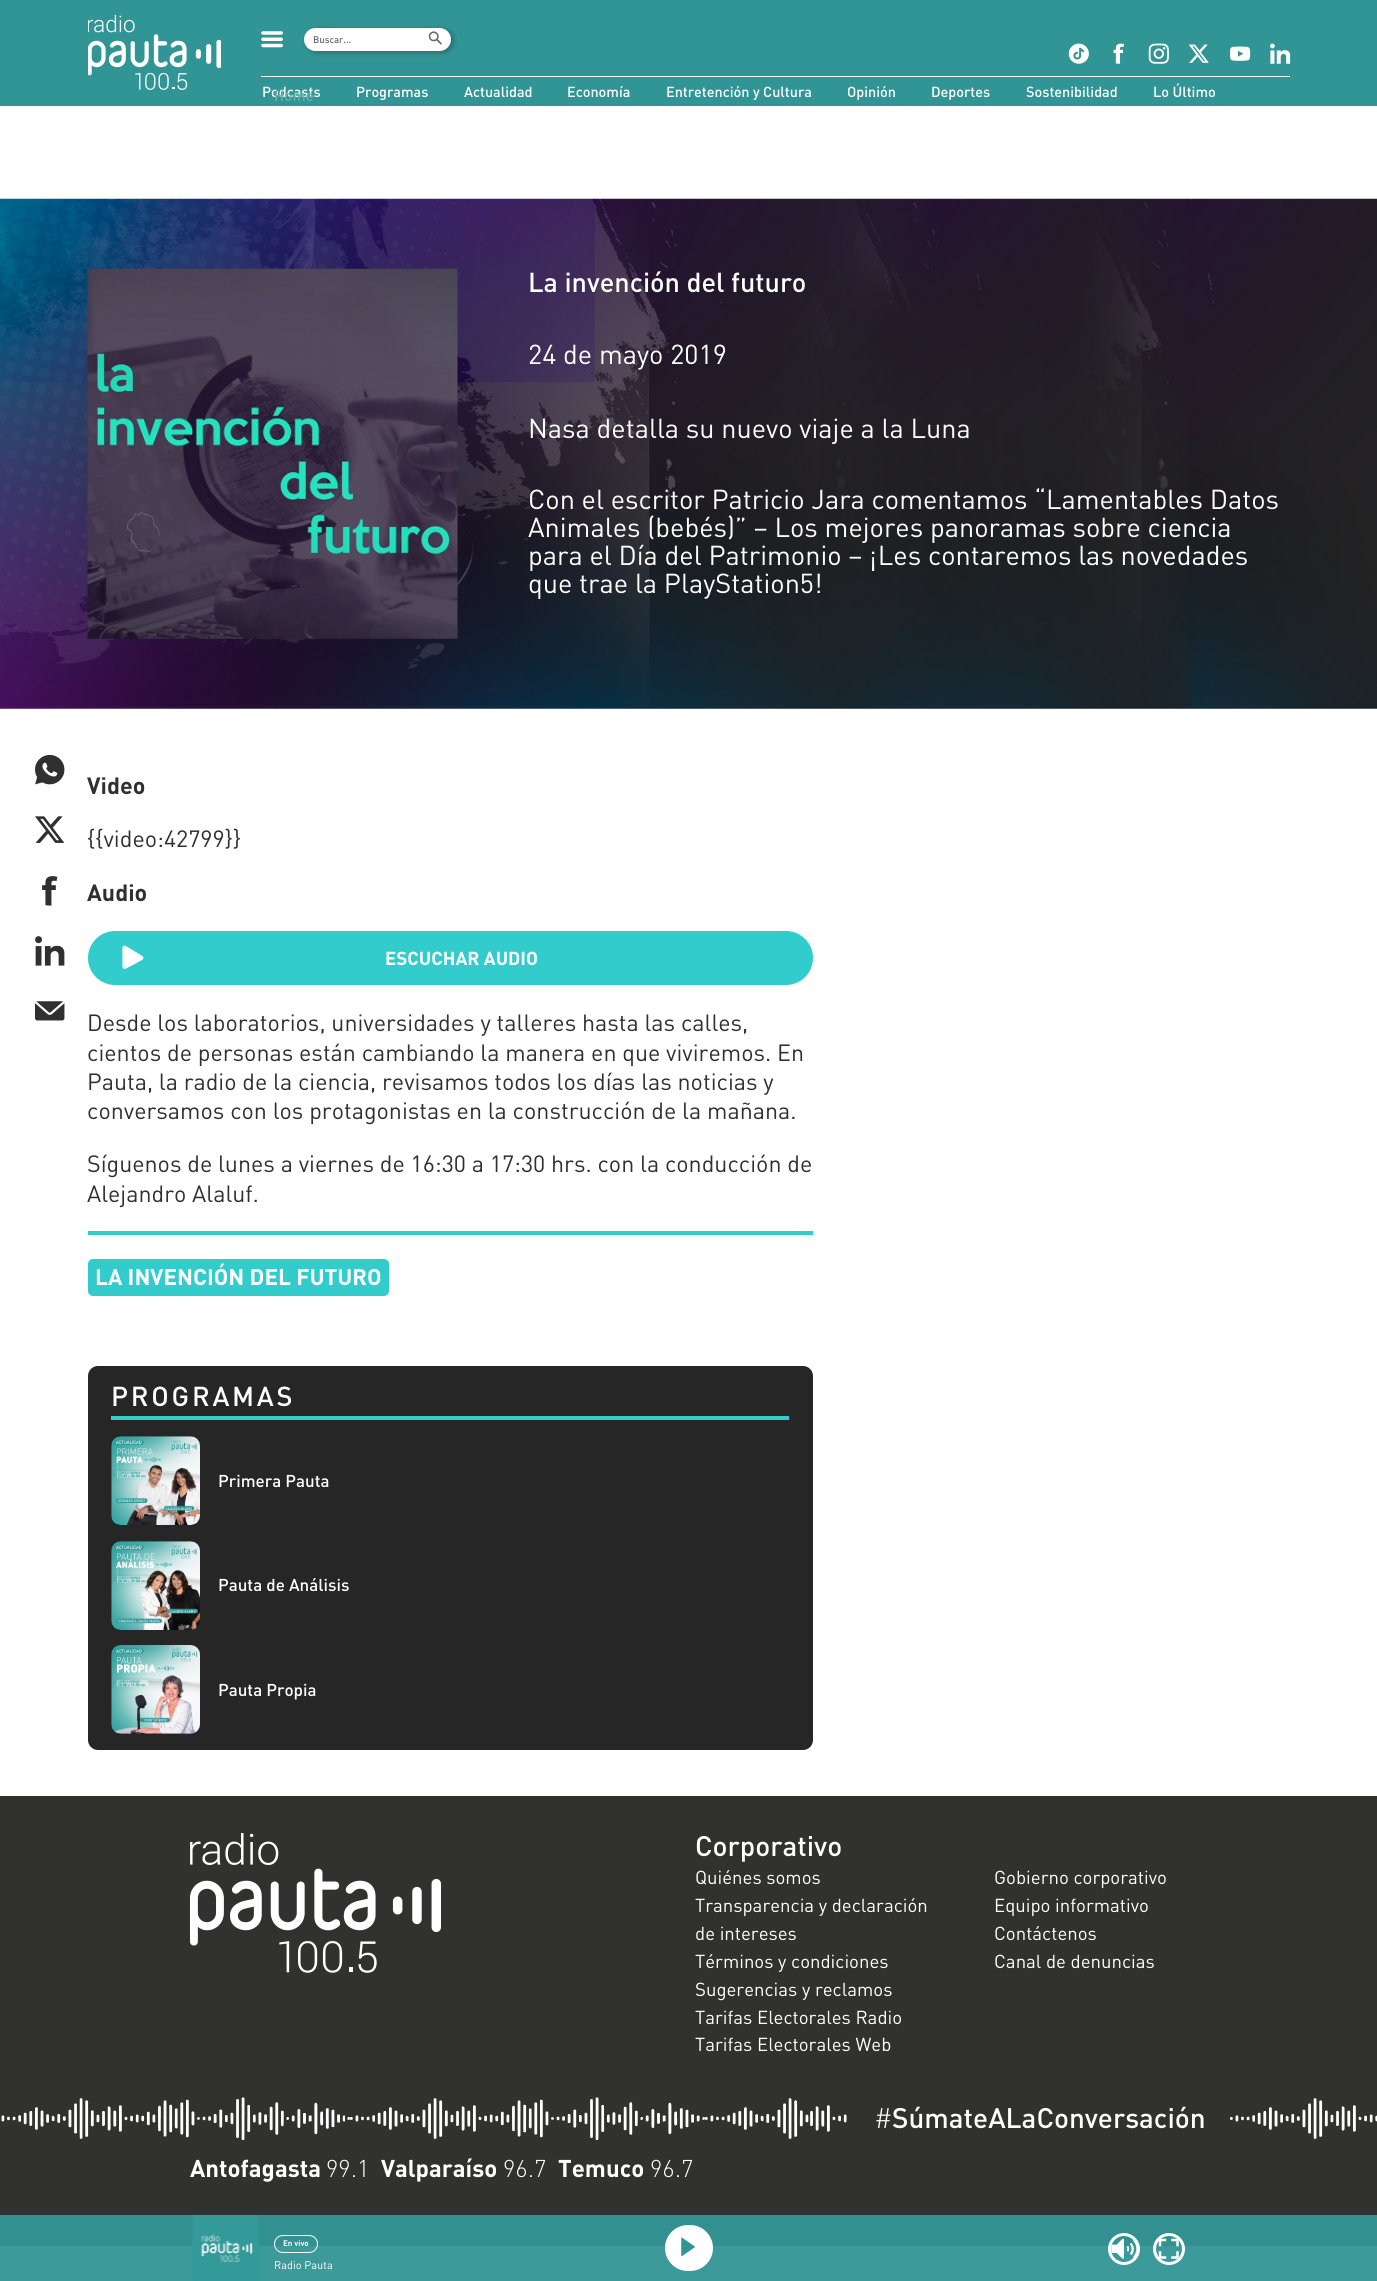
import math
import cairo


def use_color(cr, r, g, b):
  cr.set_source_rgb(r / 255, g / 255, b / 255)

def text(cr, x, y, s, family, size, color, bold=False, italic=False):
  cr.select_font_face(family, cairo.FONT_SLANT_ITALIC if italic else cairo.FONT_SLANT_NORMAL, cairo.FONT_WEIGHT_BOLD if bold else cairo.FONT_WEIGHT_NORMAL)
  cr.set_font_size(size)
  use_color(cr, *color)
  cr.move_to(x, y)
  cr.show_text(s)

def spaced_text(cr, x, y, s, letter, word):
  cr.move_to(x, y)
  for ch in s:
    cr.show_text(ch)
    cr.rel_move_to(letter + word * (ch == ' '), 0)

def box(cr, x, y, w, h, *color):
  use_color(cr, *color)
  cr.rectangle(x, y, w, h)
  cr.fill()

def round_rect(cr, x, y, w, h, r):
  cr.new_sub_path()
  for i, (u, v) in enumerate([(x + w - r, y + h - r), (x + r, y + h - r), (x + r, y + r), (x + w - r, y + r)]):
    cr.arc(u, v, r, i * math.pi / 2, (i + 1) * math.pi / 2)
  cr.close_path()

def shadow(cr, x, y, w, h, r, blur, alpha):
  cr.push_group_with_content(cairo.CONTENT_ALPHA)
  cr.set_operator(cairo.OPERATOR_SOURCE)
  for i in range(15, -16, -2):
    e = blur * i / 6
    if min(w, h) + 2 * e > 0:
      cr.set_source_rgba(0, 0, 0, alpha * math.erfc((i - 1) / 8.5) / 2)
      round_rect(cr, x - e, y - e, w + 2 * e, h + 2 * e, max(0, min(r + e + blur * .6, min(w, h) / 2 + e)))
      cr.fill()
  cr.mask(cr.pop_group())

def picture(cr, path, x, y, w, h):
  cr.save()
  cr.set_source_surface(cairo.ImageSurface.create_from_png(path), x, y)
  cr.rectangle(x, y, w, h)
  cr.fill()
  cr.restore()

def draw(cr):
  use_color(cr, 255, 255, 255)
  cr.paint()
  box(cr, 0, 2246, 1377, 35, 60, 154, 154)
  box(cr, 0, 0, 1377, 106, 50, 149, 149)
  picture(cr, "img_01.png", 88, 15, 133, 75)
  picture(cr, "img_02.png", 261, 31, 22, 17)
  use_color(cr, 0, 0, 0)
  shadow(cr, 306, 29, 148, 24, 12, 2.5, 0.25)
  use_color(cr, 255, 255, 255)
  round_rect(cr, 304, 28, 147, 23, 11.5)
  cr.fill()
  picture(cr, "img_03.png", 428, 31, 14, 14)
  picture(cr, "img_04.png", 1068, 43, 21, 21)
  picture(cr, "img_05.png", 1113, 43, 11, 21)
  picture(cr, "img_06.png", 1148, 43, 21, 21)
  picture(cr, "img_07.png", 1188, 44, 21, 19)
  picture(cr, "img_08.png", 1230, 46, 21, 15)
  picture(cr, "img_09.png", 1270, 43, 21, 21)
  box(cr, 261, 76, 1029, 1, 255, 255, 255)
  picture(cr, "img_10.png", 0, 198, 1377, 511)
  picture(cr, "img_11.png", 87, 268, 371, 371)
  picture(cr, "img_12.png", 35, 754, 30, 31)
  picture(cr, "img_13.png", 35, 816, 30, 27)
  picture(cr, "img_14.png", 42, 876, 16, 30)
  picture(cr, "img_15.png", 35, 936, 30, 30)
  picture(cr, "img_16.png", 35, 1001, 30, 20)
  use_color(cr, 51, 204, 204)
  round_rect(cr, 88, 931, 725, 54, 27)
  cr.fill()
  picture(cr, "img_17.png", 122, 945, 22, 24)
  box(cr, 88, 1231, 725, 4, 51, 204, 204)
  round_rect(cr, 88, 1259, 301, 37, 5)
  cr.fill()
  use_color(cr, 38, 38, 38)
  round_rect(cr, 88, 1366, 725, 384, 10)
  cr.fill()
  box(cr, 111, 1416, 678, 4, 51, 204, 204)
  picture(cr, "img_18.png", 111, 1436, 89, 89)
  picture(cr, "img_19.png", 111, 1541, 89, 89)
  picture(cr, "img_20.png", 111, 1645, 89, 89)
  box(cr, 0, 1796, 1377, 419, 49, 49, 48)
  box(cr, 0, 2215, 1377, 31, 50, 144, 144)
  picture(cr, "img_21.png", 190, 1833, 251, 140)
  picture(cr, "img_22.png", 1, 2097, 846, 43)
  picture(cr, "img_23.png", 1230, 2098, 147, 41)
  picture(cr, "img_24.png", 192, 2215, 67, 66)
  round_rect(cr, 274.5, 2235.5, 43, 17, 8.5)
  use_color(cr, 255, 255, 255)
  cr.set_line_width(1)
  cr.stroke()
  round_rect(cr, 666.5, 2226.5, 45, 43, 21.5)
  cr.fill_preserve()
  cr.set_line_width(3)
  cr.stroke()
  picture(cr, "img_25.png", 681, 2237, 14, 20)
  cr.arc(1124, 2249, 14.5, 0, 2 * math.pi)
  cr.stroke()
  picture(cr, "img_26.png", 1111, 2238, 26, 21)
  cr.arc(1169, 2249, 14.5, 0, 2 * math.pi)
  cr.stroke()
  picture(cr, "img_27.png", 1158, 2238, 21, 21)
  text(cr, 313, 43, "Buscar...", "DIN Medium", 9.5, (102, 102, 102))
  text(cr, 342, 264, "s", "DIN Medium", 15, (45, 39, 100))
  text(cr, 262, 97, "Podcasts", "DIN Medium", 14.4, (255, 255, 255))
  text(cr, 274, 101, "Home", "DIN Medium", 15, (102, 176, 176))
  text(cr, 356, 97, "Programas", "DIN Medium", 14.4, (255, 255, 255))
  text(cr, 464, 97, "Actualidad", "DIN Medium", 14.4, (255, 255, 255))
  text(cr, 567, 97, "Economía", "DIN Medium", 14.4, (255, 255, 255))
  text(cr, 666, 97, "Entretención y Cultura", "DIN Medium", 14.4, (255, 255, 255))
  text(cr, 847, 97, "Opinión", "DIN Medium", 14.4, (255, 255, 255))
  text(cr, 931, 97, "Deportes", "DIN Medium", 14.4, (255, 255, 255))
  text(cr, 1026, 97, "Sostenibilidad", "DIN Medium", 14.4, (255, 255, 255))
  text(cr, 1153, 97, "Lo Último", "DIN Medium", 14.4, (255, 255, 255))
  text(cr, 528, 292, "La invención del futuro", "DIN Medium", 27.1, (255, 255, 255))
  text(cr, 528, 364, "24 de mayo 2019", "DIN", 27.1, (255, 255, 255))
  text(cr, 528, 438, "Nasa detalla su nuevo viaje a la Luna", "DIN", 27.1, (255, 255, 255))
  text(cr, 528, 509, "Con el escritor Patricio Jara comentamos “Lamentables Datos", "DIN", 27.1, (255, 255, 255))
  text(cr, 528, 537, "Animales (bebés)” – Los mejores panoramas sobre ciencia", "DIN", 27.1, (255, 255, 255))
  text(cr, 528, 565, "para el Día del Patrimonio – ¡Les contaremos las novedades", "DIN", 27.1, (255, 255, 255))
  text(cr, 528, 593, "que trae la PlayStation5!", "DIN", 27.1, (255, 255, 255))
  text(cr, 87, 794, "Video", "DIN", 23.25, (48, 48, 48), bold=True)
  text(cr, 87, 847, "{{video:42799}}", "DIN", 23.25, (48, 48, 48))
  text(cr, 87, 901, "Audio", "DIN", 23.25, (48, 48, 48), bold=True)
  text(cr, 385, 965, "ESCUCHAR AUDIO", "DIN", 18.6, (255, 255, 255), bold=True)
  text(cr, 87, 1031, "Desde los laboratorios, universidades y talleres hasta las calles,", "DIN", 23.25, (48, 48, 48))
  text(cr, 87, 1061, "cientos de personas están cambiando la manera en que viviremos. En", "DIN", 23.25, (48, 48, 48))
  text(cr, 87, 1090, "Pauta, la radio de la ciencia, revisamos todos los días las noticias y", "DIN", 23.25, (48, 48, 48))
  text(cr, 87, 1119, "conversamos con los protagonistas en la construcción de la mañana.", "DIN", 23.25, (48, 48, 48))
  text(cr, 87, 1172, "Síguenos de lunes a viernes de 16:30 a 17:30 hrs. con la conducción de", "DIN", 23.25, (48, 48, 48))
  text(cr, 87, 1202, "Alejandro Alaluf.", "DIN", 23.25, (48, 48, 48))
  text(cr, 95, 1285, "LA INVENCIÓN DEL FUTURO", "DIN", 22.5, (255, 255, 255), bold=True)
  cr.select_font_face("DIN Medium")
  cr.set_font_size(27.1)
  spaced_text(cr, 111, 1406, "PROGRAMAS", 2.75, 0)
  text(cr, 218, 1487, "Primera Pauta", "DIN Medium", 17, (255, 255, 255))
  text(cr, 218, 1591, "Pauta de Análisis", "DIN Medium", 17, (255, 255, 255))
  text(cr, 218, 1696, "Pauta Propia", "DIN Medium", 17, (255, 255, 255))
  text(cr, 695, 1856, "Corporativo", "DIN Medium", 27.9, (255, 255, 255))
  text(cr, 695, 1884, "Quiénes somos", "DIN", 18.6, (255, 255, 255))
  text(cr, 695, 1912, "Transparencia y declaración", "DIN", 18.6, (255, 255, 255))
  text(cr, 695, 1940, "de intereses", "DIN", 18.6, (255, 255, 255))
  text(cr, 695, 1968, "Términos y condiciones", "DIN", 18.6, (255, 255, 255))
  text(cr, 695, 1996, "Sugerencias y reclamos", "DIN", 18.6, (255, 255, 255))
  text(cr, 695, 2024, "Tarifas Electorales Radio", "DIN", 18.6, (255, 255, 255))
  text(cr, 695, 2051, "Tarifas Electorales Web", "DIN", 18.6, (255, 255, 255))
  text(cr, 994, 1884, "Gobierno corporativo", "DIN", 18.6, (255, 255, 255))
  text(cr, 994, 1912, "Equipo informativo", "DIN", 18.6, (255, 255, 255))
  text(cr, 994, 1940, "Contáctenos", "DIN", 18.6, (255, 255, 255))
  text(cr, 994, 1968, "Canal de denuncias", "DIN", 18.6, (255, 255, 255))
  text(cr, 874, 2128, "#", "DIN Light", 27.9, (255, 255, 255))
  text(cr, 892, 2128, "SúmateALaConversación", "DIN Medium", 27.9, (255, 255, 255))
  text(cr, 190, 2177, "Antofagasta", "DIN", 24, (255, 255, 255), bold=True)
  text(cr, 326, 2177, "99.1", "DIN Light", 24, (255, 255, 255))
  text(cr, 381, 2177, "Valparaíso", "DIN", 24, (255, 255, 255), bold=True)
  text(cr, 503, 2177, "96.7", "DIN Light", 24, (255, 255, 255))
  text(cr, 558, 2177, "Temuco", "DIN", 24, (255, 255, 255), bold=True)
  text(cr, 650, 2177, "96.7", "DIN Light", 24, (255, 255, 255))
  text(cr, 283, 2246, "En vivo", "DIN", 8, (255, 255, 255), bold=True)
  text(cr, 274, 2269, "Radio Pauta", "DIN", 11, (255, 255, 255))


surface = cairo.ImageSurface(cairo.FORMAT_RGB24, 1377, 2281)
cr = cairo.Context(surface)
options = cairo.FontOptions()
options.set_hint_metrics(cairo.HINT_METRICS_OFF)
options.set_hint_style(cairo.HINT_STYLE_NONE)
cr.set_font_options(options)
cr.set_miter_limit(4)
draw(cr)
surface.write_to_png("out.png")
